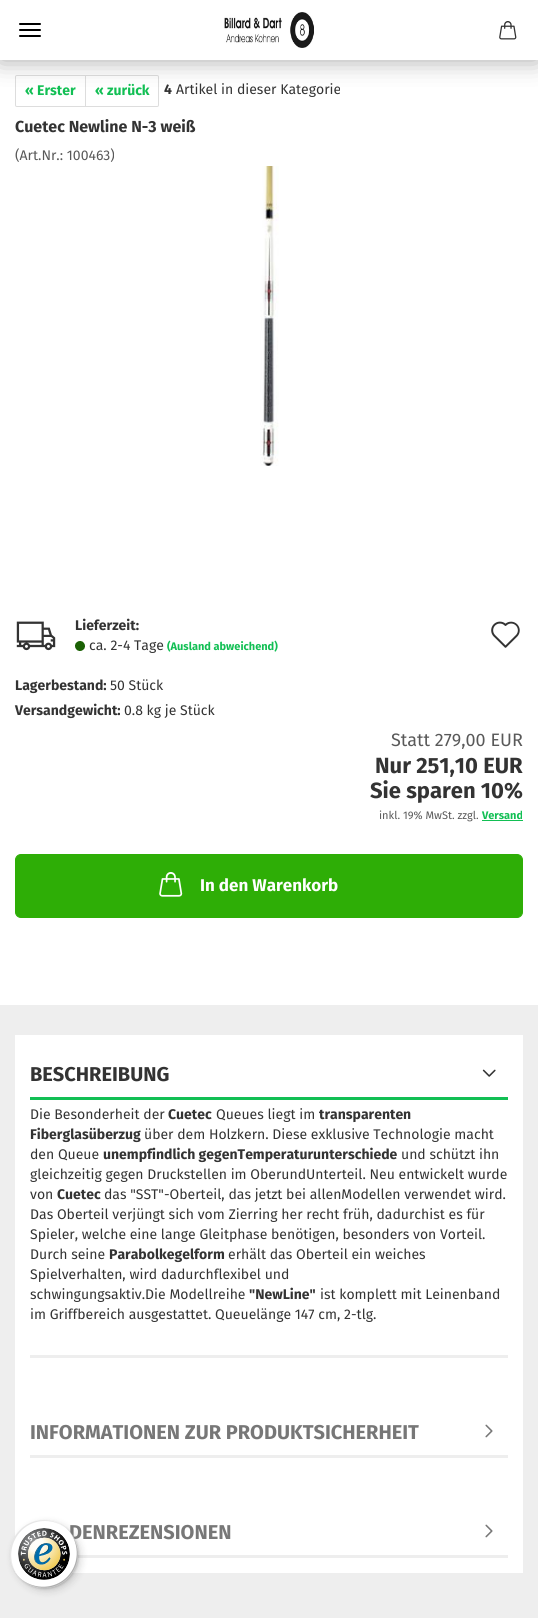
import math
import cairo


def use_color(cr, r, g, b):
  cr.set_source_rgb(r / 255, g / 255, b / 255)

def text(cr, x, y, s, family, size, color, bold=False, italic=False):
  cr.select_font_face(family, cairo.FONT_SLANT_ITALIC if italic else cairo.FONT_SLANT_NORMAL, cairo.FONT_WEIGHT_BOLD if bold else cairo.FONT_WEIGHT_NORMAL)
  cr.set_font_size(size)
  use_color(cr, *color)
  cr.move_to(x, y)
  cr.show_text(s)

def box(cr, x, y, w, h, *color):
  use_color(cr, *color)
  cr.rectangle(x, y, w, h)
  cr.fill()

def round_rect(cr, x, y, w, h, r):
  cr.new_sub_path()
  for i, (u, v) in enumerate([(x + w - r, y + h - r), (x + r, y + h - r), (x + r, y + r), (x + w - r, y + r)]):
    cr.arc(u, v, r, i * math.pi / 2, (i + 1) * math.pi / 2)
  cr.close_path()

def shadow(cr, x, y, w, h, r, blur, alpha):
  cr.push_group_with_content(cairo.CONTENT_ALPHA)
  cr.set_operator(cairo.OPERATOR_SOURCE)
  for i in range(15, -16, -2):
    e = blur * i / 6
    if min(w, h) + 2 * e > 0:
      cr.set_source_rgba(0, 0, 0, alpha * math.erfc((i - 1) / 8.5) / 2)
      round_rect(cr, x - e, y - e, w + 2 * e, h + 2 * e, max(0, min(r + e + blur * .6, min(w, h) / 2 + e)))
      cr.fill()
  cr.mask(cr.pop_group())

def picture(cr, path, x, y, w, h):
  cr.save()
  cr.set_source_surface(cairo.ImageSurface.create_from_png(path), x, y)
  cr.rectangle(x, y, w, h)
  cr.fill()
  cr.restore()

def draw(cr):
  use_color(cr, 255, 255, 255)
  cr.paint()
  cr.new_path()
  cr.move_to(17, 75.5)
  cr.line_to(85.5, 75.5)
  cr.line_to(85.5, 106.5)
  cr.line_to(17, 106.5)
  cr.curve_to(16, 106.5, 15.5, 106, 15.5, 105)
  cr.line_to(15.5, 77)
  cr.curve_to(15.5, 76, 16, 75.5, 17, 75.5)
  cr.close_path()
  use_color(cr, 221, 221, 221)
  cr.set_line_width(1)
  cr.stroke()
  use_color(cr, 255, 255, 255)
  cr.new_path()
  cr.move_to(85.5, 75.5)
  cr.line_to(157, 75.5)
  cr.curve_to(158, 75.5, 158.5, 76, 158.5, 77)
  cr.line_to(158.5, 105)
  cr.curve_to(158.5, 106, 158, 106.5, 157, 106.5)
  cr.line_to(85.5, 106.5)
  cr.close_path()
  cr.fill_preserve()
  use_color(cr, 221, 221, 221)
  cr.stroke()
  use_color(cr, 0, 0, 0)
  shadow(cr, 0, 0, 538, 60, 0, 12.5, 0.35)
  box(cr, 0, 0, 538, 60, 255, 255, 255)
  picture(cr, "img_01.png", 224, 12, 90, 36)
  picture(cr, "img_02.png", 499, 21, 18, 19)
  use_color(cr, 0, 0, 0)
  round_rect(cr, 19, 29, 22, 2, 1)
  cr.fill()
  round_rect(cr, 19, 23, 22, 2, 1)
  cr.fill()
  round_rect(cr, 19, 35, 22, 2, 1)
  cr.fill()
  picture(cr, "img_03.png", 260, 166, 19, 300)
  picture(cr, "img_04.png", 16, 621, 40, 30)
  picture(cr, "img_05.png", 75, 641, 10, 10)
  picture(cr, "img_06.png", 491, 621, 29, 27)
  box(cr, 482, 820, 41, 1, 18, 191, 84)
  use_color(cr, 46, 174, 6)
  round_rect(cr, 15.5, 854.5, 507, 63, 5.5)
  cr.fill_preserve()
  cr.stroke()
  picture(cr, "img_07.png", 159, 872, 24, 25)
  box(cr, 0, 1005, 538, 613, 238, 238, 238)
  box(cr, 15, 1035, 508, 538, 255, 255, 255)
  box(cr, 30, 1097, 478, 3, 18, 191, 84)
  picture(cr, "img_08.png", 482, 1069, 14, 8)
  box(cr, 30, 1355, 478, 3, 238, 238, 238)
  box(cr, 30, 1455, 478, 3, 238, 238, 238)
  picture(cr, "img_09.png", 485, 1424, 8, 14)
  box(cr, 77, 1555, 431, 3, 238, 238, 238)
  picture(cr, "img_09.png", 485, 1524, 8, 14)
  use_color(cr, 0, 0, 0)
  shadow(cr, 13, 1523, 68, 68, 34, 4, 0.15)
  shadow(cr, 11, 1521, 68, 68, 34, 1, 0.15)
  text(cr, 25, 95, "« Erster", "Fira Sans", 14, (18, 191, 84), bold=True)
  text(cr, 95, 95, "« zurück", "Fira Sans", 14, (18, 191, 84), bold=True)
  text(cr, 164, 94, "4", "Fira Sans", 14, (51, 51, 51), bold=True)
  text(cr, 176, 94, "Artikel in dieser Kategorie", "Fira Sans", 14, (51, 51, 51))
  text(cr, 15, 132, "Cuetec Newline N-3 weiß", "Fira Sans", 16, (51, 51, 51), bold=True)
  text(cr, 15, 160, "(Art.Nr.: 100463)", "Fira Sans", 14, (89, 89, 89))
  text(cr, 75, 630, "Lieferzeit:", "Fira Sans", 14, (51, 51, 51), bold=True)
  text(cr, 89, 650, "ca. 2-4 Tage", "Fira Sans", 14, (51, 51, 51))
  text(cr, 167, 650, "(Ausland abweichend)", "Fira Sans", 11, (18, 191, 84), bold=True)
  text(cr, 15, 690, "Lagerbestand:", "Fira Sans", 14, (51, 51, 51), bold=True)
  text(cr, 110, 690, "50 Stück", "Fira Sans", 14, (51, 51, 51))
  text(cr, 15, 715, "Versandgewicht:", "Fira Sans", 14, (51, 51, 51), bold=True)
  text(cr, 124, 715, "0.8 kg je Stück", "Fira Sans", 14, (51, 51, 51))
  text(cr, 391, 746, "Statt 279,00 EUR", "Fira Sans", 18, (89, 89, 89))
  text(cr, 375, 773, "Nur 251,10 EUR", "Fira Sans", 22, (51, 51, 51), bold=True)
  text(cr, 370, 798, "Sie sparen 10%", "Fira Sans", 22, (51, 51, 51), bold=True)
  text(cr, 379, 819, "inkl. 19% MwSt. zzgl.", "Fira Sans", 11, (89, 89, 89))
  text(cr, 482, 819, "Versand", "Fira Sans", 11, (18, 191, 84), bold=True)
  text(cr, 200, 891, "In den Warenkorb", "Fira Sans", 17, (255, 255, 255), bold=True)
  text(cr, 30, 1081, "BESCHREIBUNG", "Fira Sans", 20, (51, 51, 51), bold=True)
  text(cr, 30, 1119, "Die Besonderheit der", "Fira Sans", 14, (51, 51, 51))
  text(cr, 168, 1119, "Cuetec", "Fira Sans", 14, (51, 51, 51), bold=True)
  text(cr, 216, 1119, "Queues liegt im", "Fira Sans", 14, (51, 51, 51))
  text(cr, 319, 1119, "transparenten", "Fira Sans", 14, (51, 51, 51), bold=True)
  text(cr, 30, 1139, "Fiberglasüberzug", "Fira Sans", 14, (51, 51, 51), bold=True)
  text(cr, 144, 1139, "über dem Holzkern. Diese exklusive Technologie macht", "Fira Sans", 14, (51, 51, 51))
  text(cr, 30, 1159, "den Queue", "Fira Sans", 14, (51, 51, 51))
  text(cr, 103, 1159, "unempfindlich gegenTemperaturunterschiede", "Fira Sans", 14, (51, 51, 51), bold=True)
  text(cr, 401, 1159, "und schützt ihn", "Fira Sans", 14, (51, 51, 51))
  text(cr, 30, 1179, "gleichzeitig gegen Druckstellen im OberundUnterteil. Neu entwickelt wurde", "Fira Sans", 14, (51, 51, 51))
  text(cr, 30, 1199, "von", "Fira Sans", 14, (51, 51, 51))
  text(cr, 57, 1199, "Cuetec", "Fira Sans", 14, (51, 51, 51), bold=True)
  text(cr, 104, 1199, "das \"SST\"-Oberteil, das jetzt bei allenModellen verwendet wird.", "Fira Sans", 14, (51, 51, 51))
  text(cr, 30, 1219, "Das Oberteil verjüngt sich vom Zierring her recht früh, dadurchist es für", "Fira Sans", 14, (51, 51, 51))
  text(cr, 30, 1239, "Spieler, welche eine lange Gleitphase benötigen, besonders von Vorteil.", "Fira Sans", 14, (51, 51, 51))
  text(cr, 30, 1259, "Durch seine", "Fira Sans", 14, (51, 51, 51))
  text(cr, 109, 1259, "Parabolkegelform", "Fira Sans", 14, (51, 51, 51), bold=True)
  text(cr, 228, 1259, "erhält das Oberteil ein weiches", "Fira Sans", 14, (51, 51, 51))
  text(cr, 30, 1279, "Spielverhalten, wird dadurchflexibel und", "Fira Sans", 14, (51, 51, 51))
  text(cr, 30, 1299, "schwingungsaktiv.Die Modellreihe", "Fira Sans", 14, (51, 51, 51))
  text(cr, 249, 1299, "\"NewLine\"", "Fira Sans", 14, (51, 51, 51), bold=True)
  text(cr, 320, 1299, "ist komplett mit Leinenband", "Fira Sans", 14, (51, 51, 51))
  text(cr, 30, 1319, "im Griffbereich ausgestattet. Queuelänge 147 cm, 2-tlg.", "Fira Sans", 14, (51, 51, 51))
  text(cr, 30, 1439, "INFORMATIONEN ZUR PRODUKTSICHERHEIT", "Fira Sans", 20, (119, 119, 119), bold=True)
  text(cr, 69, 1539, "DENREZENSIONEN", "Fira Sans", 20, (119, 119, 119), bold=True)
  use_color(cr, 255, 255, 255)
  cr.new_path()
  cr.arc(44, 1554, 34, 0, 2 * math.pi)
  cr.fill()
  cr.set_source_rgba(0, 0, 0, 0.1)
  cr.new_path()
  cr.move_to(45, 1521)
  cr.curve_to(53, 1521, 61, 1524, 67, 1529)
  cr.curve_to(53, 1517, 33, 1517, 20, 1530)
  cr.curve_to(7, 1543, 7, 1563, 19, 1577)
  cr.curve_to(1, 1555, 16, 1521, 45, 1521)
  cr.close_path()
  cr.fill()
  cr.set_source_rgba(0, 0, 0, 0.2)
  cr.new_path()
  cr.move_to(21, 1579)
  cr.curve_to(35, 1591, 55, 1591, 68, 1578)
  cr.curve_to(81, 1565, 81, 1545, 69, 1531)
  cr.curve_to(80, 1545, 79, 1565, 67, 1577)
  cr.curve_to(55, 1589, 35, 1590, 21, 1579)
  cr.close_path()
  cr.fill()
  cr.set_source_rgba(0.196, 0.196, 0.196, 0.2)
  cr.new_path()
  cr.move_to(17, 1575)
  cr.curve_to(30, 1591, 54, 1592, 68, 1578)
  cr.curve_to(82, 1564, 81, 1540, 65, 1527)
  cr.curve_to(80, 1540, 81, 1563, 67, 1577)
  cr.curve_to(53, 1591, 30, 1590, 17, 1575)
  cr.close_path()
  cr.fill()
  cr.set_source_rgba(1, 1, 1, 0.3)
  cr.set_fill_rule(cairo.FILL_RULE_EVEN_ODD)
  cr.new_path()
  cr.move_to(44, 1520)
  cr.curve_to(63, 1520, 78, 1535, 78, 1554)
  cr.curve_to(78, 1535, 62, 1520, 44, 1520)
  cr.close_path()
  cr.move_to(44, 1588)
  cr.curve_to(63, 1588, 78, 1573, 78, 1554)
  cr.curve_to(78, 1572, 62, 1588, 44, 1588)
  cr.close_path()
  cr.fill()
  picture(cr, "img_10.png", 18, 1528, 52, 52)


surface = cairo.ImageSurface(cairo.FORMAT_RGB24, 538, 1618)
cr = cairo.Context(surface)
options = cairo.FontOptions()
options.set_hint_metrics(cairo.HINT_METRICS_OFF)
options.set_hint_style(cairo.HINT_STYLE_NONE)
cr.set_font_options(options)
cr.set_miter_limit(4)
draw(cr)
surface.write_to_png("out.png")
